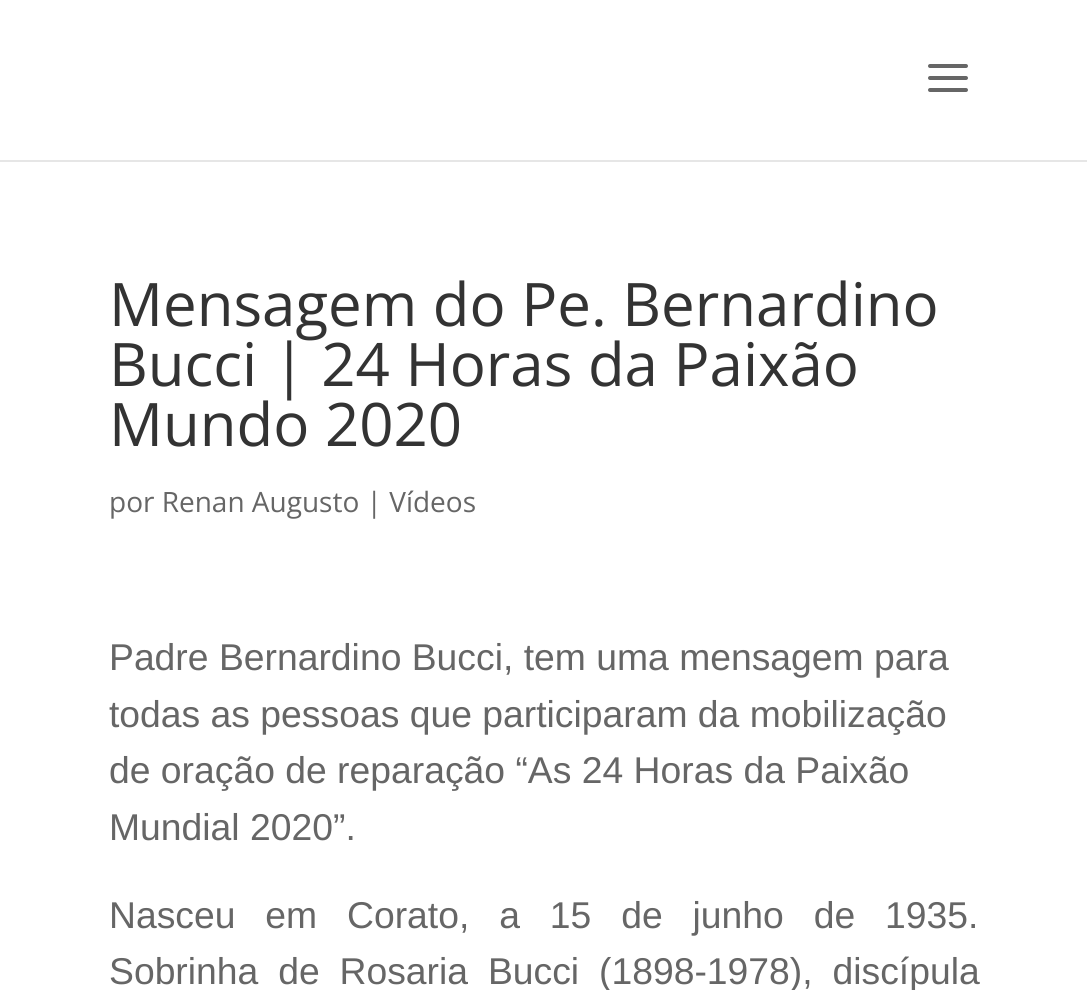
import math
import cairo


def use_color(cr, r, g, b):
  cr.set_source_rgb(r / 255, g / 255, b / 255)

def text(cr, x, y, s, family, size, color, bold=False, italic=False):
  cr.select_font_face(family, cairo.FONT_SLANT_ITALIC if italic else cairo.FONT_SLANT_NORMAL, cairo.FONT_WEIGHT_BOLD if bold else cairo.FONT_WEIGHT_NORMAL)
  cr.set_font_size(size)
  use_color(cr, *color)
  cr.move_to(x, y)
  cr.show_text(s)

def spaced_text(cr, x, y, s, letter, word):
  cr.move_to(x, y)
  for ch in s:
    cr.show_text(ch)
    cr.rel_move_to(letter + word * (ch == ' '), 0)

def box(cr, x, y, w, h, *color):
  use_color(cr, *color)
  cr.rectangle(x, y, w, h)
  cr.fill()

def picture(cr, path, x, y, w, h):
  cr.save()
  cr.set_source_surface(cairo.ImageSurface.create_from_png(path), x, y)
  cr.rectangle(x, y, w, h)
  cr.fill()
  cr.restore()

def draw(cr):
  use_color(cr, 255, 255, 255)
  cr.paint()
  box(cr, 0, 160, 1087, 2, 230, 230, 230)
  picture(cr, "img_01.png", 928, 64, 40, 28)
  text(cr, 109, 326, "Mensagem do Pe. Bernardino", "Open Sans", 60, (51, 51, 51))
  text(cr, 109, 386, "Bucci | 24 Horas da Paixão", "Open Sans", 60, (51, 51, 51))
  text(cr, 109, 446, "Mundo 2020", "Open Sans", 60, (51, 51, 51))
  text(cr, 109, 512, "por Renan Augusto | Vídeos", "Open Sans", 28, (102, 102, 102))
  text(cr, 109, 670, "Padre Bernardino Bucci, tem uma mensagem para", "Liberation Sans", 37.3, (102, 102, 102))
  text(cr, 109, 727, "todas as pessoas que participaram da mobilização", "Liberation Sans", 37.3, (102, 102, 102))
  text(cr, 109, 783, "de oração de reparação “As 24 Horas da Paixão", "Liberation Sans", 37.3, (102, 102, 102))
  text(cr, 109, 840, "Mundial 2020”.", "Liberation Sans", 37.3, (102, 102, 102))
  spaced_text(cr, 109, 928, "Nasceu em Corato, a 15 de junho de 1935.", 0, 19.5)
  spaced_text(cr, 109, 984, "Sobrinha de Rosaria Bucci (1898-1978), discípula", 0, 9.5)


surface = cairo.ImageSurface(cairo.FORMAT_RGB24, 1087, 990)
cr = cairo.Context(surface)
options = cairo.FontOptions()
options.set_hint_metrics(cairo.HINT_METRICS_OFF)
options.set_hint_style(cairo.HINT_STYLE_NONE)
cr.set_font_options(options)
cr.set_miter_limit(4)
draw(cr)
surface.write_to_png("out.png")
